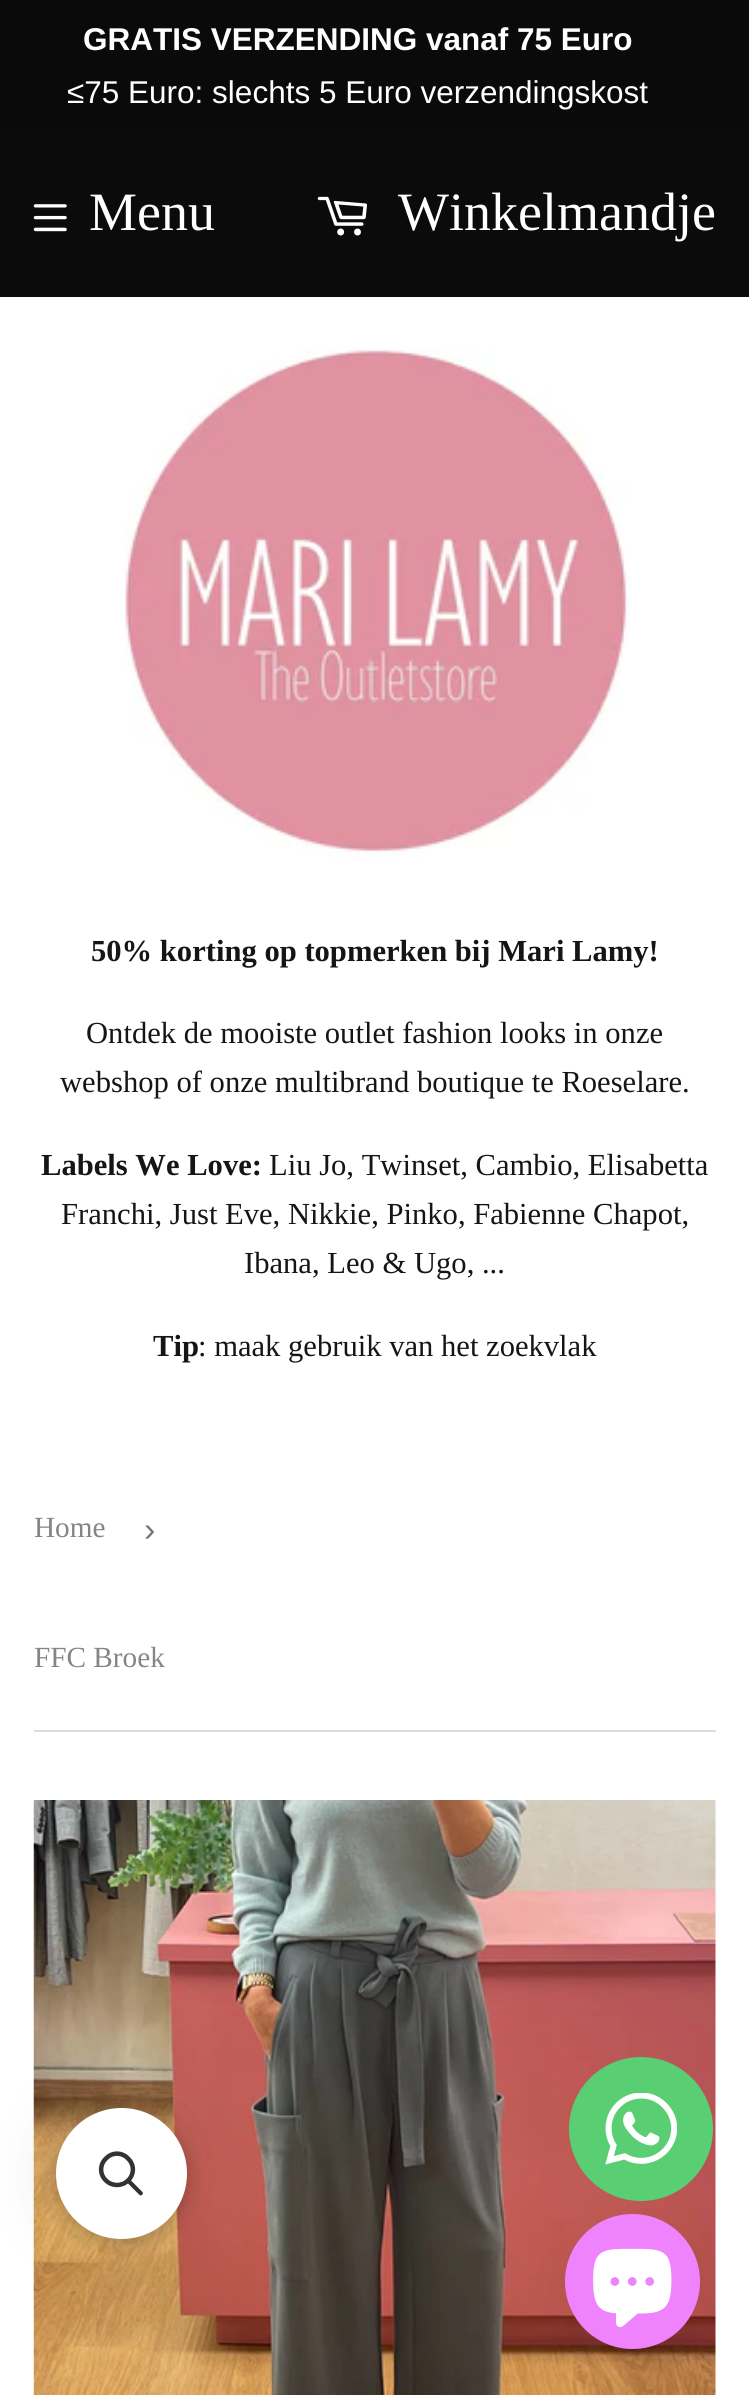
import math
import cairo


def use_color(cr, r, g, b):
  cr.set_source_rgb(r / 255, g / 255, b / 255)

def text(cr, x, y, s, family, size, color, bold=False, italic=False):
  cr.select_font_face(family, cairo.FONT_SLANT_ITALIC if italic else cairo.FONT_SLANT_NORMAL, cairo.FONT_WEIGHT_BOLD if bold else cairo.FONT_WEIGHT_NORMAL)
  cr.set_font_size(size)
  use_color(cr, *color)
  cr.move_to(x, y)
  cr.show_text(s)

def box(cr, x, y, w, h, *color):
  use_color(cr, *color)
  cr.rectangle(x, y, w, h)
  cr.fill()

def round_rect(cr, x, y, w, h, r):
  cr.new_sub_path()
  for i, (u, v) in enumerate([(x + w - r, y + h - r), (x + r, y + h - r), (x + r, y + r), (x + w - r, y + r)]):
    cr.arc(u, v, r, i * math.pi / 2, (i + 1) * math.pi / 2)
  cr.close_path()

def shadow(cr, x, y, w, h, r, blur, alpha):
  cr.push_group_with_content(cairo.CONTENT_ALPHA)
  cr.set_operator(cairo.OPERATOR_SOURCE)
  for i in range(15, -16, -2):
    e = blur * i / 6
    if min(w, h) + 2 * e > 0:
      cr.set_source_rgba(0, 0, 0, alpha * math.erfc((i - 1) / 8.5) / 2)
      round_rect(cr, x - e, y - e, w + 2 * e, h + 2 * e, max(0, min(r + e + blur * .6, min(w, h) / 2 + e)))
      cr.fill()
  cr.mask(cr.pop_group())

def picture(cr, path, x, y, w, h):
  cr.save()
  cr.set_source_surface(cairo.ImageSurface.create_from_png(path), x, y)
  cr.rectangle(x, y, w, h)
  cr.fill()
  cr.restore()

def draw(cr):
  use_color(cr, 255, 255, 255)
  cr.paint()
  box(cr, 0, 0, 749, 128, 10, 10, 10)
  box(cr, 0, 128, 749, 169, 11, 11, 11)
  picture(cr, "img_01.png", 33, 204, 34, 28)
  picture(cr, "img_02.png", 317, 196, 50, 40)
  picture(cr, "img_03.png", 124, 349, 506, 510)
  box(cr, 34, 1730, 682, 2, 222, 222, 222)
  picture(cr, "img_04.png", 33, 1800, 683, 595)
  use_color(cr, 0, 0, 0)
  shadow(cr, 56, 2117, 131, 131, 65.5, 9, 0.05)
  shadow(cr, 56, 2113, 131, 130, 65, 9, 0.15)
  shadow(cr, 56, 2108, 131, 131, 65.5, 34, 0.1)
  use_color(cr, 255, 255, 255)
  cr.arc(121.5, 2173.5, 65.5, 0, 2 * math.pi)
  cr.fill()
  cr.new_path()
  cr.move_to(106, 2158.5)
  cr.curve_to(112, 2152, 122, 2152, 128, 2158.5)
  cr.curve_to(134.5, 2164.5, 134.5, 2174.5, 128, 2180.5)
  cr.curve_to(122, 2186.5, 112, 2186.5, 106, 2180.5)
  cr.curve_to(99.5, 2174.5, 99.5, 2164.5, 106, 2158.5)
  cr.close_path()
  use_color(cr, 51, 51, 51)
  cr.set_line_width(4.5)
  cr.stroke()
  cr.new_path()
  cr.move_to(126.5, 2182)
  cr.line_to(129.5, 2179)
  cr.line_to(142.5, 2192)
  cr.curve_to(144, 2194, 141, 2196.5, 139.5, 2195)
  cr.close_path()
  cr.fill()
  use_color(cr, 89, 206, 114)
  cr.arc(641, 2129, 72, 0, 2 * math.pi)
  cr.fill()
  picture(cr, "img_05.png", 605, 2093, 72, 72)
  use_color(cr, 238, 131, 253)
  cr.arc(632.5, 2281.5, 67.5, 0, 2 * math.pi)
  cr.fill()
  picture(cr, "img_06.png", 593, 2248, 79, 80)
  text(cr, 83, 50, "GRATIS VERZENDING vanaf 75 Euro", "Liberation Sans", 31.5, (255, 255, 255), bold=True)
  text(cr, 67, 103, "≤75 Euro: slechts 5 Euro verzendingskost", "Liberation Sans", 31.5, (255, 255, 255))
  text(cr, 89, 230, "Menu", "Liberation Serif", 54, (255, 255, 255))
  text(cr, 398, 230, "Winkelmandje", "Liberation Serif", 54, (255, 255, 255))
  text(cr, 91, 961, "50% korting op topmerken bij Mari Lamy!", "Liberation Serif", 30.6, (21, 21, 21), bold=True)
  text(cr, 86, 1043, "Ontdek de mooiste outlet fashion looks in onze", "Liberation Serif", 30.6, (21, 21, 21))
  text(cr, 60, 1092, "webshop of onze multibrand boutique te Roeselare.", "Liberation Serif", 30.6, (21, 21, 21))
  text(cr, 41, 1175, "Labels We Love:", "Liberation Serif", 30.6, (21, 21, 21), bold=True)
  text(cr, 269, 1175, "Liu Jo, Twinset, Cambio, Elisabetta", "Liberation Serif", 30.6, (21, 21, 21))
  text(cr, 61, 1224, "Franchi, Just Eve, Nikkie, Pinko, Fabienne Chapot,", "Liberation Serif", 30.6, (21, 21, 21))
  text(cr, 244, 1273, "Ibana, Leo & Ugo, ...", "Liberation Serif", 30.6, (21, 21, 21))
  text(cr, 153, 1356, "Tip", "Liberation Serif", 30.6, (21, 21, 21), bold=True)
  text(cr, 198, 1356, ": maak gebruik van het zoekvlak", "Liberation Serif", 30.6, (21, 21, 21))
  text(cr, 34, 1537, "Home", "Liberation Serif", 29.25, (133, 133, 133))
  text(cr, 144, 1541, "›", "Liberation Sans", 34, (118, 118, 118))
  text(cr, 34, 1667, "FFC Broek", "Liberation Serif", 29.25, (133, 133, 133))


surface = cairo.ImageSurface(cairo.FORMAT_RGB24, 749, 2395)
cr = cairo.Context(surface)
options = cairo.FontOptions()
options.set_hint_metrics(cairo.HINT_METRICS_OFF)
options.set_hint_style(cairo.HINT_STYLE_NONE)
cr.set_font_options(options)
cr.set_miter_limit(4)
draw(cr)
surface.write_to_png("out.png")
